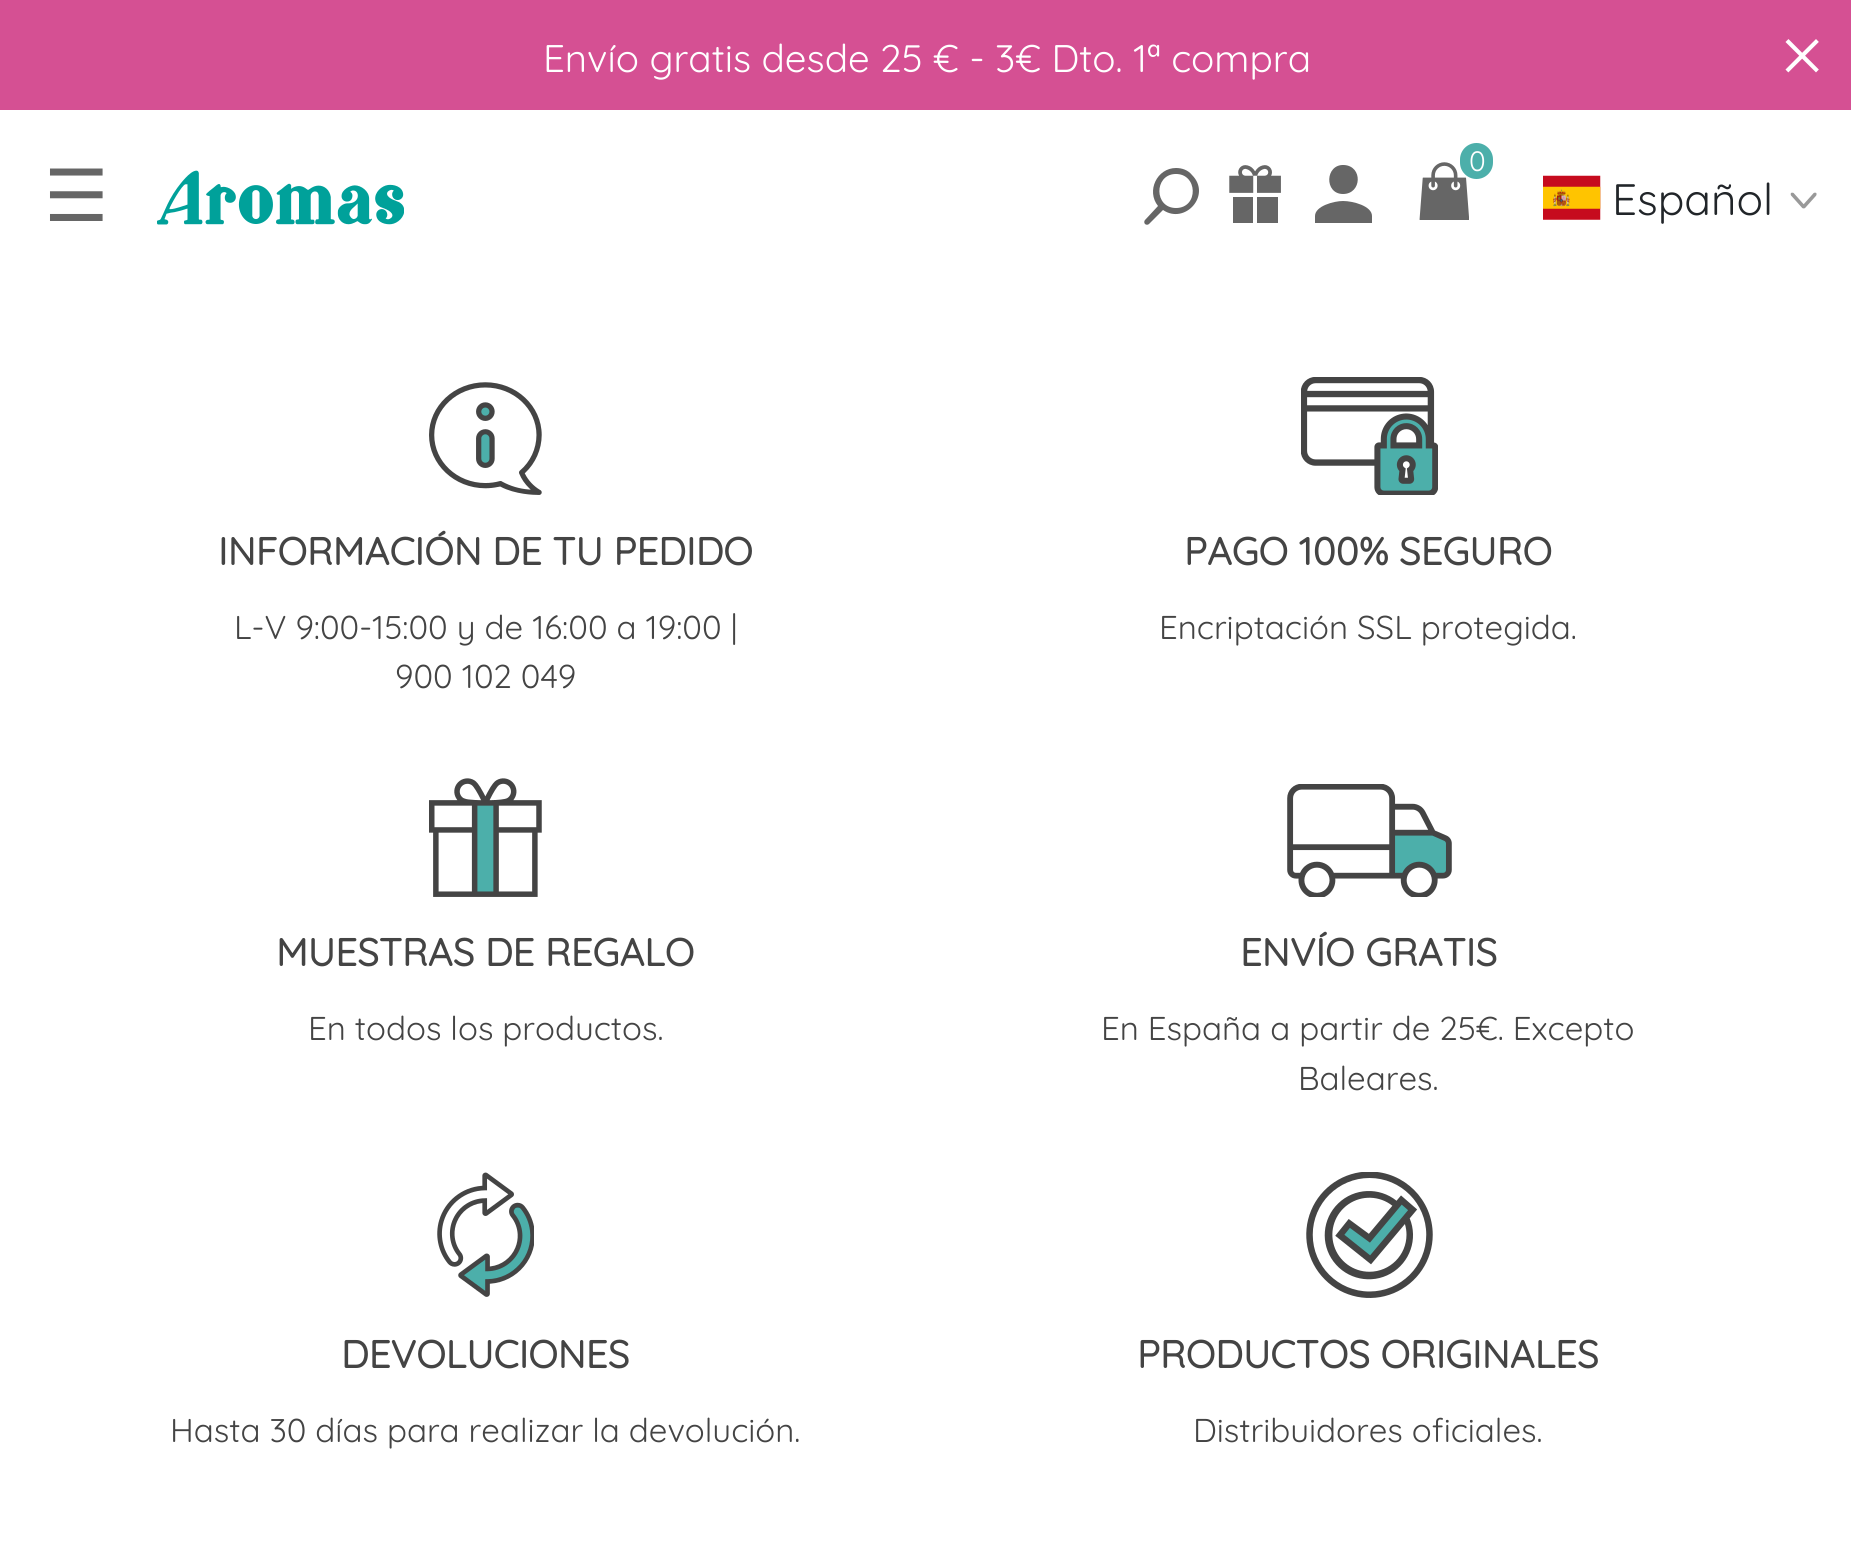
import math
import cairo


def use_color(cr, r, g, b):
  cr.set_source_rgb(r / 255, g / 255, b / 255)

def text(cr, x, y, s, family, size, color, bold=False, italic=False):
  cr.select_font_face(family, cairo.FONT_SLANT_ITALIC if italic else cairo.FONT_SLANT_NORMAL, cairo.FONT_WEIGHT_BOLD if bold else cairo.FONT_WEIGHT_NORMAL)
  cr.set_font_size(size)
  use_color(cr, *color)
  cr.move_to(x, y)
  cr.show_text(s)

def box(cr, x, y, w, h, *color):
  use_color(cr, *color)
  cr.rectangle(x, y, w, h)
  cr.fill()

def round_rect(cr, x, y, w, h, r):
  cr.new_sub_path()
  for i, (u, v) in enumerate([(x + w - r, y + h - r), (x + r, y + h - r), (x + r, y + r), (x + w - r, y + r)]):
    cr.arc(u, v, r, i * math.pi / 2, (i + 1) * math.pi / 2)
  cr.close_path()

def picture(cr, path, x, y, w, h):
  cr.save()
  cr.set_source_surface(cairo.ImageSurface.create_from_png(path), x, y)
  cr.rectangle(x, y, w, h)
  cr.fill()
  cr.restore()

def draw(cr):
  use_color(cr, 255, 255, 255)
  cr.paint()
  box(cr, 0, 0, 1851, 110, 213, 80, 147)
  picture(cr, "img_01.png", 157, 170, 247, 55)
  picture(cr, "img_02.png", 1419, 162, 50, 58)
  use_color(cr, 76, 175, 170)
  round_rect(cr, 1460, 143, 33, 36, 16.5)
  cr.fill()
  use_color(cr, 102, 102, 102)
  cr.new_path()
  cr.move_to(1176, 168)
  cr.curve_to(1157, 168, 1146, 191, 1158, 206)
  cr.line_to(1145, 220)
  cr.curve_to(1144, 221, 1144, 223, 1145, 224)
  cr.curve_to(1146, 225, 1148, 225, 1149, 224)
  cr.line_to(1163, 210)
  cr.curve_to(1185, 225, 1212, 195, 1192, 175)
  cr.curve_to(1188, 170, 1182, 168, 1176, 168)
  cr.close_path()
  cr.move_to(1176, 208)
  cr.curve_to(1154, 208, 1154, 175, 1175, 174)
  cr.curve_to(1198, 173, 1199, 208, 1176, 208)
  cr.close_path()
  cr.fill()
  picture(cr, "img_03.png", 1229, 165, 52, 58)
  cr.new_path()
  cr.move_to(1343, 194)
  cr.curve_to(1362, 194, 1363, 166, 1344, 165)
  cr.curve_to(1325, 164, 1324, 194, 1343, 194)
  cr.close_path()
  cr.move_to(1343, 201)
  cr.curve_to(1334, 201, 1315, 206, 1315, 216)
  cr.line_to(1315, 223)
  cr.line_to(1372, 223)
  cr.line_to(1372, 216)
  cr.curve_to(1372, 206, 1353, 201, 1343, 201)
  cr.close_path()
  cr.fill()
  picture(cr, "img_04.png", 1543, 175, 58, 45)
  picture(cr, "img_05.png", 1790, 192, 27, 17)
  picture(cr, "img_06.png", 429, 382, 113, 113)
  picture(cr, "img_07.png", 1301, 377, 137, 118)
  picture(cr, "img_08.png", 429, 778, 113, 119)
  picture(cr, "img_09.png", 1287, 784, 165, 113)
  picture(cr, "img_10.png", 437, 1172, 97, 125)
  picture(cr, "img_11.png", 1306, 1172, 127, 126)
  text(cr, 543, 72, "Envío gratis desde 25 € - 3€ Dto. 1ª compra", "Quicksand", 38.5, (255, 255, 255))
  text(cr, 1779, 83, "×", "Liberation Serif", 82, (255, 255, 255))
  text(cr, 44, 221, "☰", "DejaVu Sans", 72, (102, 102, 102))
  text(cr, 1469, 171, "0", "Quicksand", 28, (255, 255, 255))
  text(cr, 1612, 215, "Español", "Quicksand", 44, (33, 37, 41))
  text(cr, 218, 565, "INFORMACIÓN DE TU PEDIDO", "Quicksand", 38.5, (68, 68, 68), bold=True)
  text(cr, 234, 639, "L-V 9:00-15:00 y de 16:00 a 19:00 |", "Quicksand", 33, (68, 68, 68))
  text(cr, 395, 688, "900 102 049", "Quicksand", 33, (68, 68, 68))
  text(cr, 1184, 565, "PAGO 100% SEGURO", "Quicksand", 38.5, (68, 68, 68), bold=True)
  text(cr, 1159, 639, "Encriptación SSL protegida.", "Quicksand", 33, (68, 68, 68))
  text(cr, 276, 966, "MUESTRAS DE REGALO", "Quicksand", 38.5, (68, 68, 68), bold=True)
  text(cr, 308, 1040, "En todos los productos.", "Quicksand", 33, (68, 68, 68))
  text(cr, 1240, 966, "ENVÍO GRATIS", "Quicksand", 38.5, (68, 68, 68), bold=True)
  text(cr, 1101, 1040, "En España a partir de 25€. Excepto", "Quicksand", 33, (68, 68, 68))
  text(cr, 1298, 1090, "Baleares.", "Quicksand", 33, (68, 68, 68))
  text(cr, 341, 1368, "DEVOLUCIONES", "Quicksand", 38.5, (68, 68, 68), bold=True)
  text(cr, 170, 1442, "Hasta 30 días para realizar la devolución.", "Quicksand", 33, (68, 68, 68))
  text(cr, 1137, 1368, "PRODUCTOS ORIGINALES", "Quicksand", 38.5, (68, 68, 68), bold=True)
  text(cr, 1193, 1442, "Distribuidores oficiales.", "Quicksand", 33, (68, 68, 68))


surface = cairo.ImageSurface(cairo.FORMAT_RGB24, 1851, 1556)
cr = cairo.Context(surface)
options = cairo.FontOptions()
options.set_hint_metrics(cairo.HINT_METRICS_OFF)
options.set_hint_style(cairo.HINT_STYLE_NONE)
cr.set_font_options(options)
cr.set_miter_limit(4)
draw(cr)
surface.write_to_png("out.png")
